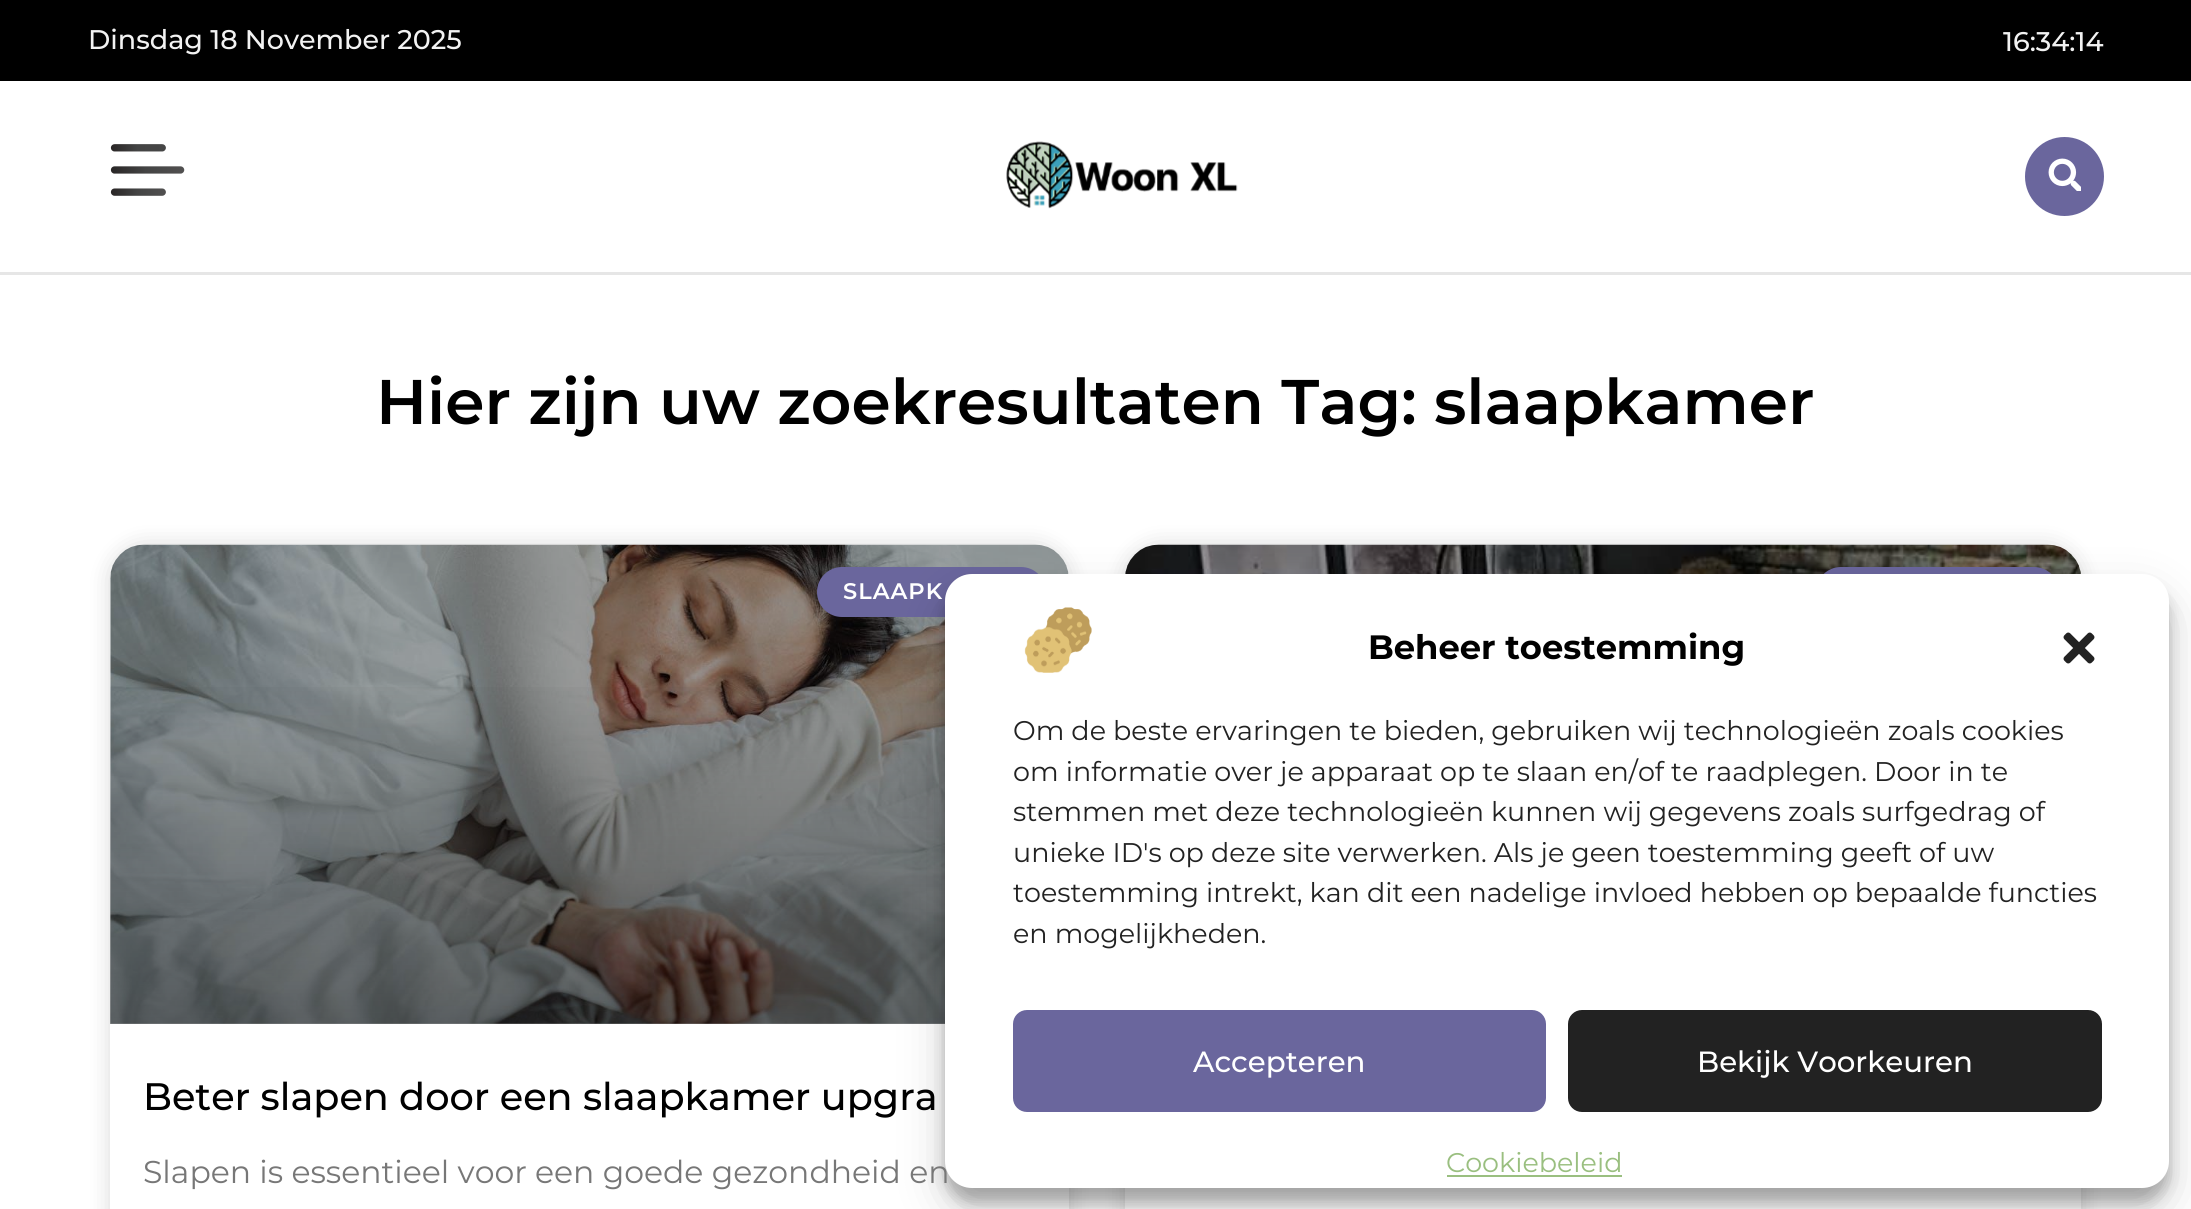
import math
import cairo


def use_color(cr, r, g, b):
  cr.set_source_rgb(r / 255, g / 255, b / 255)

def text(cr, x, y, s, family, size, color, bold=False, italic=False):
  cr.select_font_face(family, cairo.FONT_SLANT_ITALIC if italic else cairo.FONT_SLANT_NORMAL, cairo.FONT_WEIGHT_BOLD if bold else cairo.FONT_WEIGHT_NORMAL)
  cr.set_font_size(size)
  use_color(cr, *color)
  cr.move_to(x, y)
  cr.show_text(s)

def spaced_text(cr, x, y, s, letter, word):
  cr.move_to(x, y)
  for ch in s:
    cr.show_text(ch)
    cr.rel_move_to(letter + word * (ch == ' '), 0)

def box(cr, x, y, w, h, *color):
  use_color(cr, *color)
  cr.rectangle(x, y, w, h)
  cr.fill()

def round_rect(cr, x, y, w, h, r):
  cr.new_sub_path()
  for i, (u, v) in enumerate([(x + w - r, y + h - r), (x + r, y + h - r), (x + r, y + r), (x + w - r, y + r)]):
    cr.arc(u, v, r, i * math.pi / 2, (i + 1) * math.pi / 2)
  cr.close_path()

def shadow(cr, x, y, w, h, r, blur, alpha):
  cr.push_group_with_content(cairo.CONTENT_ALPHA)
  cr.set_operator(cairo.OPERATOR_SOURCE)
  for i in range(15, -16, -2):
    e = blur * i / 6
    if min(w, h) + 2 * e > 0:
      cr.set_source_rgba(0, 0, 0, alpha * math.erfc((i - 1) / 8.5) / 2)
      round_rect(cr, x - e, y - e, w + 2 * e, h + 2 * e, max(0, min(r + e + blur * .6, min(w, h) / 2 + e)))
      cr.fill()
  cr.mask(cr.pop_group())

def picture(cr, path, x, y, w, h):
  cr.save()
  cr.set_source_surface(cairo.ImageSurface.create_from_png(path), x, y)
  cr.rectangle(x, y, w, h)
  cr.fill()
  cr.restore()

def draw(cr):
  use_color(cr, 255, 255, 255)
  cr.paint()
  use_color(cr, 230, 230, 230)
  cr.new_path()
  cr.move_to(0, 272)
  cr.line_to(0, 275)
  cr.line_to(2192, 275)
  cr.line_to(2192, 2)
  cr.line_to(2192, 272)
  cr.close_path()
  cr.fill()
  box(cr, 0, 0, 2191, 81, 0, 0, 0)
  picture(cr, "img_01.png", 110, 144, 75, 52)
  picture(cr, "img_02.png", 1006, 141, 232, 68)
  use_color(cr, 106, 102, 157)
  cr.arc(2064.5, 176.5, 39.5, 0, 2 * math.pi)
  cr.fill()
  picture(cr, "img_03.png", 2048, 158, 33, 33)
  use_color(cr, 0, 0, 0)
  shadow(cr, 110, 545, 959, 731, 34, 11, 0.15)
  use_color(cr, 255, 255, 255)
  round_rect(cr, 110, 545, 959, 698, 34)
  cr.fill()
  picture(cr, "img_04.png", 110, 544, 959, 480)
  gradient = cairo.LinearGradient(590, 1024, 590, 545)
  gradient.add_color_stop_rgba(0, 0, 0, 0, 0.35)
  gradient.add_color_stop_rgba(0.75, 0, 0, 0, 0)
  cr.set_source(gradient)
  cr.rectangle(110, 687, 835, 337)
  cr.fill()
  use_color(cr, 106, 102, 157)
  round_rect(cr, 817, 567, 229, 50, 25)
  cr.fill()
  use_color(cr, 0, 0, 0)
  shadow(cr, 1125, 545, 956, 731, 34, 11, 0.15)
  use_color(cr, 255, 255, 255)
  round_rect(cr, 1125, 545, 956, 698, 34)
  cr.fill()
  picture(cr, "img_05.png", 1125, 544, 956, 30)
  use_color(cr, 106, 102, 157)
  round_rect(cr, 1816, 567, 243, 50, 25)
  cr.fill()
  use_color(cr, 0, 0, 0)
  shadow(cr, 945, 587, 1224, 615, 27, 7, 0.23)
  shadow(cr, 945, 596, 1224, 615, 27, 22.5, 0.19)
  text(cr, 88, 49, "Dinsdag 18 November 2025", "Montserrat Medium", 27, (242, 242, 242))
  text(cr, 2003, 51, "16:34:14", "Montserrat Medium", 27, (242, 242, 242))
  text(cr, 376, 424, "Hier zijn uw zoekresultaten Tag: slaapkamer", "Montserrat SemiBold", 63, (0, 0, 0))
  cr.set_font_size(22.5)
  use_color(cr, 255, 255, 255)
  spaced_text(cr, 843, 599, "SLAAPK", 1, 0)
  text(cr, 143, 1110, "Beter slapen door een slaapkamer upgra", "Montserrat Medium", 38.25, (0, 0, 0))
  text(cr, 143, 1183, "Slapen is essentieel voor een goede gezondheid en", "Montserrat", 31.5, (119, 119, 119))
  use_color(cr, 255, 255, 255)
  round_rect(cr, 945, 574, 1224, 614, 27)
  cr.fill()
  picture(cr, "img_06.png", 1024, 607, 68, 66)
  text(cr, 1368, 659, "Beheer toestemming", "Montserrat", 33.75, (0, 0, 0), bold=True)
  picture(cr, "img_07.png", 2063, 632, 32, 32)
  text(cr, 1013, 740, "Om de beste ervaringen te bieden, gebruiken wij technologieën zoals cookies", "Montserrat", 27, (34, 34, 34))
  text(cr, 1013, 781, "om informatie over je apparaat op te slaan en/of te raadplegen. Door in te", "Montserrat", 27, (34, 34, 34))
  text(cr, 1013, 821, "stemmen met deze technologieën kunnen wij gegevens zoals surfgedrag of", "Montserrat", 27, (34, 34, 34))
  text(cr, 1013, 862, "unieke ID's op deze site verwerken. Als je geen toestemming geeft of uw", "Montserrat", 27, (34, 34, 34))
  text(cr, 1013, 902, "toestemming intrekt, kan dit een nadelige invloed hebben op bepaalde functies", "Montserrat", 27, (34, 34, 34))
  text(cr, 1013, 943, "en mogelijkheden.", "Montserrat", 27, (34, 34, 34))
  use_color(cr, 106, 102, 157)
  round_rect(cr, 1014, 1011, 531, 100, 13)
  cr.fill_preserve()
  cr.stroke()
  text(cr, 1193, 1072, "Accepteren", "Montserrat Medium", 29.25, (255, 255, 255))
  use_color(cr, 34, 34, 34)
  round_rect(cr, 1569, 1011, 532, 100, 13)
  cr.fill_preserve()
  cr.stroke()
  text(cr, 1697, 1072, "Bekijk Voorkeuren", "Montserrat Medium", 29.25, (255, 255, 255))
  text(cr, 1446, 1172, "Cookiebeleid", "Montserrat", 27, (154, 191, 128))
  box(cr, 1447, 1175, 175, 2, 154, 191, 128)


surface = cairo.ImageSurface(cairo.FORMAT_RGB24, 2191, 1209)
cr = cairo.Context(surface)
options = cairo.FontOptions()
options.set_hint_metrics(cairo.HINT_METRICS_OFF)
options.set_hint_style(cairo.HINT_STYLE_NONE)
cr.set_font_options(options)
cr.set_miter_limit(4)
draw(cr)
surface.write_to_png("out.png")
